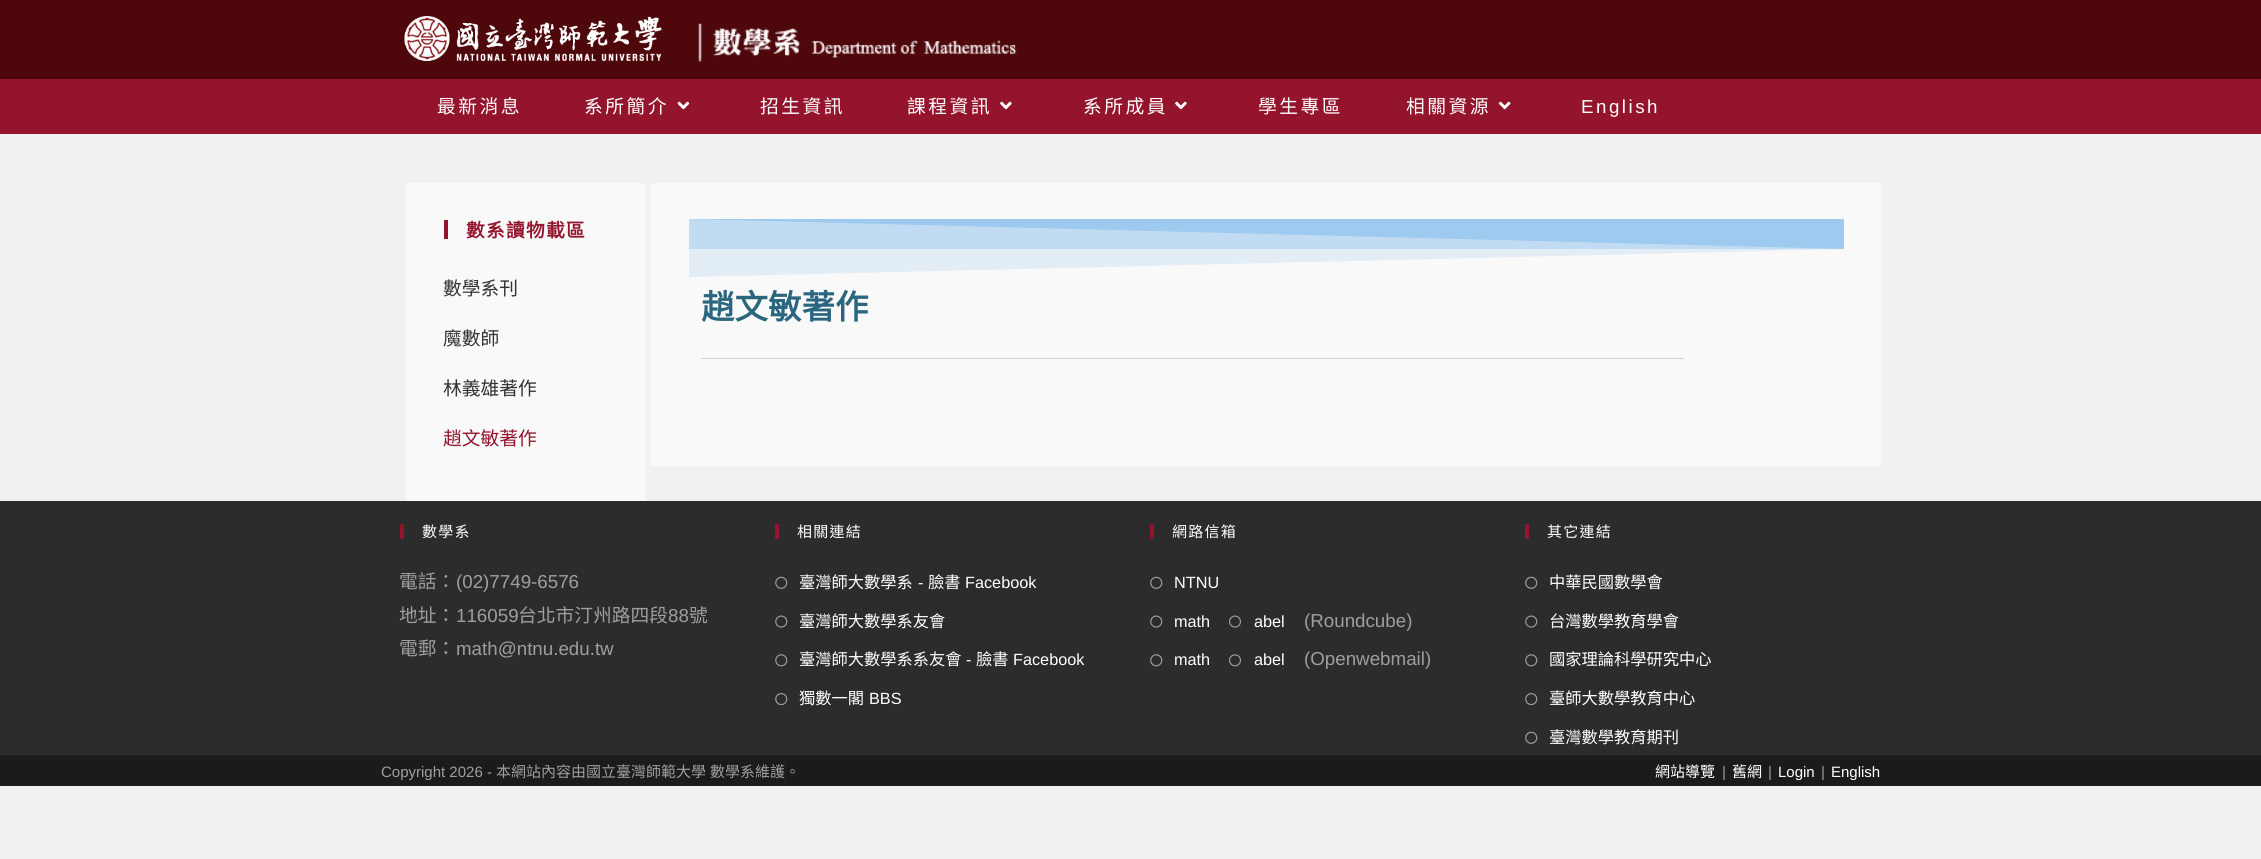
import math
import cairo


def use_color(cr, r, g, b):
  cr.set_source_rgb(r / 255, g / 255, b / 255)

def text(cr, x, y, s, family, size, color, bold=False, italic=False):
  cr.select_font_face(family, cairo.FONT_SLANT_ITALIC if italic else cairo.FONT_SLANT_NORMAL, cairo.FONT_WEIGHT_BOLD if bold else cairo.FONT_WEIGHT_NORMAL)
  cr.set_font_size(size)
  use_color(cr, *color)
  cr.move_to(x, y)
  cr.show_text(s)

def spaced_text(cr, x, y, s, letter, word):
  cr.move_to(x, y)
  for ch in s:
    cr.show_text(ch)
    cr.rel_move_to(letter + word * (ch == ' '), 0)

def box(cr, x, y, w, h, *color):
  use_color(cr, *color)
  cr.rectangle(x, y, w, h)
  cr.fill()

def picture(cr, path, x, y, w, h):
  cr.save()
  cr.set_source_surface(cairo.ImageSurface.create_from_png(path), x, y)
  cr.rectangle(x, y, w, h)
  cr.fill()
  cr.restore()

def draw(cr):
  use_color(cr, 241, 241, 241)
  cr.paint()
  box(cr, 0, 0, 2261, 79, 78, 7, 11)
  picture(cr, "img_01.png", 404, 16, 258, 45)
  picture(cr, "img_02.png", 698, 23, 319, 39)
  box(cr, 0, 79, 2261, 55, 148, 20, 45)
  picture(cr, "img_03.png", 677, 101, 13, 9)
  picture(cr, "img_04.png", 1000, 101, 12, 9)
  picture(cr, "img_04.png", 1175, 101, 12, 9)
  picture(cr, "img_05.png", 1498, 101, 13, 9)
  box(cr, 406, 183, 239, 318, 249, 249, 249)
  box(cr, 444, 220, 4, 19, 148, 20, 45)
  box(cr, 651, 183, 1230, 283, 249, 249, 249)
  box(cr, 689, 219, 1155, 30, 204, 226, 244)
  cr.save()
  cr.rectangle(689, 219, 1155, 59)
  cr.clip()
  use_color(cr, 158, 203, 239)
  cr.new_path()
  cr.move_to(688, 219)
  cr.line_to(1845, 219)
  cr.line_to(1845, 249)
  cr.close_path()
  cr.fill()
  cr.set_source_rgba(0.62, 0.796, 0.937, 0.25)
  cr.new_path()
  cr.move_to(1845, 219)
  cr.line_to(688, 219)
  cr.line_to(688, 277)
  cr.line_to(1845, 249)
  cr.close_path()
  cr.fill()
  cr.restore()
  box(cr, 701, 358, 983, 1, 211, 211, 211)
  box(cr, 0, 501, 2261, 254, 44, 44, 44)
  box(cr, 400, 524, 4, 15, 148, 20, 45)
  box(cr, 775, 524, 4, 15, 148, 20, 45)
  picture(cr, "img_06.png", 775, 576, 13, 13)
  picture(cr, "img_07.png", 775, 615, 13, 13)
  picture(cr, "img_08.png", 775, 654, 13, 13)
  picture(cr, "img_09.png", 775, 693, 13, 13)
  box(cr, 1150, 524, 4, 15, 148, 20, 45)
  picture(cr, "img_06.png", 1150, 576, 13, 13)
  picture(cr, "img_07.png", 1150, 615, 13, 13)
  picture(cr, "img_10.png", 1229, 615, 12, 13)
  picture(cr, "img_08.png", 1150, 654, 13, 13)
  picture(cr, "img_11.png", 1229, 654, 12, 13)
  box(cr, 1525, 524, 4, 15, 148, 20, 45)
  picture(cr, "img_06.png", 1525, 576, 13, 13)
  picture(cr, "img_07.png", 1525, 615, 13, 13)
  picture(cr, "img_08.png", 1525, 654, 13, 13)
  picture(cr, "img_09.png", 1525, 693, 13, 13)
  picture(cr, "img_06.png", 1525, 731, 13, 13)
  box(cr, 0, 755, 2261, 31, 27, 27, 27)
  cr.select_font_face("Noto Sans CJK TC")
  cr.set_font_size(18.75)
  use_color(cr, 255, 255, 255)
  spaced_text(cr, 437, 113, "最新消息", 2.5, 0)
  spaced_text(cr, 584, 113, "系所簡介", 2.5, 0)
  spaced_text(cr, 760, 113, "招生資訊", 2.5, 0)
  spaced_text(cr, 907, 113, "課程資訊", 2.5, 0)
  spaced_text(cr, 1083, 113, "系所成員", 2.5, 0)
  spaced_text(cr, 1258, 113, "學生專區", 2.5, 0)
  spaced_text(cr, 1406, 113, "相關資源", 2.5, 0)
  cr.select_font_face("Liberation Sans")
  spaced_text(cr, 1581, 113, "English", 2.5, 0)
  cr.select_font_face("Noto Sans CJK TC", cairo.FONT_SLANT_NORMAL, cairo.FONT_WEIGHT_BOLD)
  use_color(cr, 148, 20, 45)
  spaced_text(cr, 466, 237, "數系讀物載區", 1.25, 0)
  text(cr, 443, 295, "數學系刊", "Noto Sans CJK TC", 18.75, (51, 51, 51))
  text(cr, 443, 345, "魔數師", "Noto Sans CJK TC", 18.75, (51, 51, 51))
  text(cr, 443, 395, "林義雄著作", "Noto Sans CJK TC", 18.75, (51, 51, 51))
  text(cr, 443, 445, "趙文敏著作", "Noto Sans CJK TC", 18.75, (148, 20, 45))
  text(cr, 701, 319, "趙文敏著作", "Noto Sans CJK TC", 33.5, (43, 102, 127), bold=True)
  cr.select_font_face("Noto Sans CJK TC")
  cr.set_font_size(15)
  use_color(cr, 255, 255, 255)
  spaced_text(cr, 422, 537, "數學系", 1.25, 0)
  text(cr, 399, 588, "電話：", "Noto Sans CJK TC", 18.75, (158, 158, 158))
  text(cr, 456, 588, "(02)7749-6576", "Liberation Sans", 18.75, (158, 158, 158))
  text(cr, 399, 622, "地址：", "Noto Sans CJK TC", 18.75, (158, 158, 158))
  text(cr, 456, 622, "116059", "Liberation Sans", 18.75, (158, 158, 158))
  text(cr, 518, 622, "台北市汀州路四段", "Noto Sans CJK TC", 18.75, (158, 158, 158))
  text(cr, 668, 622, "88", "Liberation Sans", 18.75, (158, 158, 158))
  text(cr, 689, 622, "號", "Noto Sans CJK TC", 18.75, (158, 158, 158))
  text(cr, 399, 655, "電郵：", "Noto Sans CJK TC", 18.75, (158, 158, 158))
  text(cr, 456, 655, "math@ntnu.edu.tw", "Liberation Sans", 18.75, (158, 158, 158))
  cr.select_font_face("Noto Sans CJK TC")
  cr.set_font_size(15)
  use_color(cr, 255, 255, 255)
  spaced_text(cr, 797, 537, "相關連結", 1.25, 0)
  text(cr, 799, 588, "臺灣師大數學系", "Noto Sans CJK TC", 16.25, (255, 255, 255))
  text(cr, 918, 588, "-", "Liberation Sans", 16.25, (255, 255, 255))
  text(cr, 928, 588, "臉書", "Noto Sans CJK TC", 16.25, (255, 255, 255))
  text(cr, 965, 588, "Facebook", "Liberation Sans", 16.25, (255, 255, 255))
  text(cr, 799, 627, "臺灣師大數學系友會", "Noto Sans CJK TC", 16.25, (255, 255, 255))
  text(cr, 799, 665, "臺灣師大數學系系友會", "Noto Sans CJK TC", 16.25, (255, 255, 255))
  text(cr, 966, 665, "-", "Liberation Sans", 16.25, (255, 255, 255))
  text(cr, 976, 665, "臉書", "Noto Sans CJK TC", 16.25, (255, 255, 255))
  text(cr, 1013, 665, "Facebook", "Liberation Sans", 16.25, (255, 255, 255))
  text(cr, 799, 704, "獨數一閣", "Noto Sans CJK TC", 16.25, (255, 255, 255))
  text(cr, 869, 704, "BBS", "Liberation Sans", 16.25, (255, 255, 255))
  cr.select_font_face("Noto Sans CJK TC")
  cr.set_font_size(15)
  spaced_text(cr, 1172, 537, "網路信箱", 1.25, 0)
  text(cr, 1174, 588, "NTNU", "Liberation Sans", 16.25, (255, 255, 255))
  text(cr, 1174, 627, "math", "Liberation Sans", 16.25, (255, 255, 255))
  text(cr, 1254, 627, "abel", "Liberation Sans", 16.25, (255, 255, 255))
  text(cr, 1304, 627, "(Roundcube)", "Liberation Sans", 18.75, (158, 158, 158))
  text(cr, 1174, 665, "math", "Liberation Sans", 16.25, (255, 255, 255))
  text(cr, 1254, 665, "abel", "Liberation Sans", 16.25, (255, 255, 255))
  text(cr, 1304, 665, "(Openwebmail)", "Liberation Sans", 18.75, (158, 158, 158))
  cr.select_font_face("Noto Sans CJK TC")
  cr.set_font_size(15)
  use_color(cr, 255, 255, 255)
  spaced_text(cr, 1547, 537, "其它連結", 1.25, 0)
  text(cr, 1549, 588, "中華民國數學會", "Noto Sans CJK TC", 16.25, (255, 255, 255))
  text(cr, 1549, 627, "台灣數學教育學會", "Noto Sans CJK TC", 16.25, (255, 255, 255))
  text(cr, 1549, 665, "國家理論科學研究中心", "Noto Sans CJK TC", 16.25, (255, 255, 255))
  text(cr, 1549, 704, "臺師大數學教育中心", "Noto Sans CJK TC", 16.25, (255, 255, 255))
  text(cr, 1549, 743, "臺灣數學教育期刊", "Noto Sans CJK TC", 16.25, (255, 255, 255))
  text(cr, 381, 777, "Copyright 2026 -", "Liberation Sans", 15, (158, 158, 158))
  text(cr, 496, 777, "本網站內容由國立臺灣師範大學", "Noto Sans CJK TC", 15, (158, 158, 158))
  text(cr, 710, 777, "數學系維護。", "Noto Sans CJK TC", 15, (158, 158, 158))
  text(cr, 1655, 777, "網站導覽", "Noto Sans CJK TC", 15, (255, 255, 255))
  text(cr, 1722, 777, "|", "Liberation Sans", 15, (158, 158, 158))
  text(cr, 1732, 777, "舊網", "Noto Sans CJK TC", 15, (255, 255, 255))
  text(cr, 1768, 777, "|", "Liberation Sans", 15, (158, 158, 158))
  text(cr, 1778, 777, "Login", "Liberation Sans", 15, (255, 255, 255))
  text(cr, 1821, 777, "|", "Liberation Sans", 15, (158, 158, 158))
  text(cr, 1831, 777, "English", "Liberation Sans", 15, (255, 255, 255))


surface = cairo.ImageSurface(cairo.FORMAT_RGB24, 2261, 859)
cr = cairo.Context(surface)
options = cairo.FontOptions()
options.set_hint_metrics(cairo.HINT_METRICS_OFF)
options.set_hint_style(cairo.HINT_STYLE_NONE)
cr.set_font_options(options)
cr.set_miter_limit(4)
draw(cr)
surface.write_to_png("out.png")
